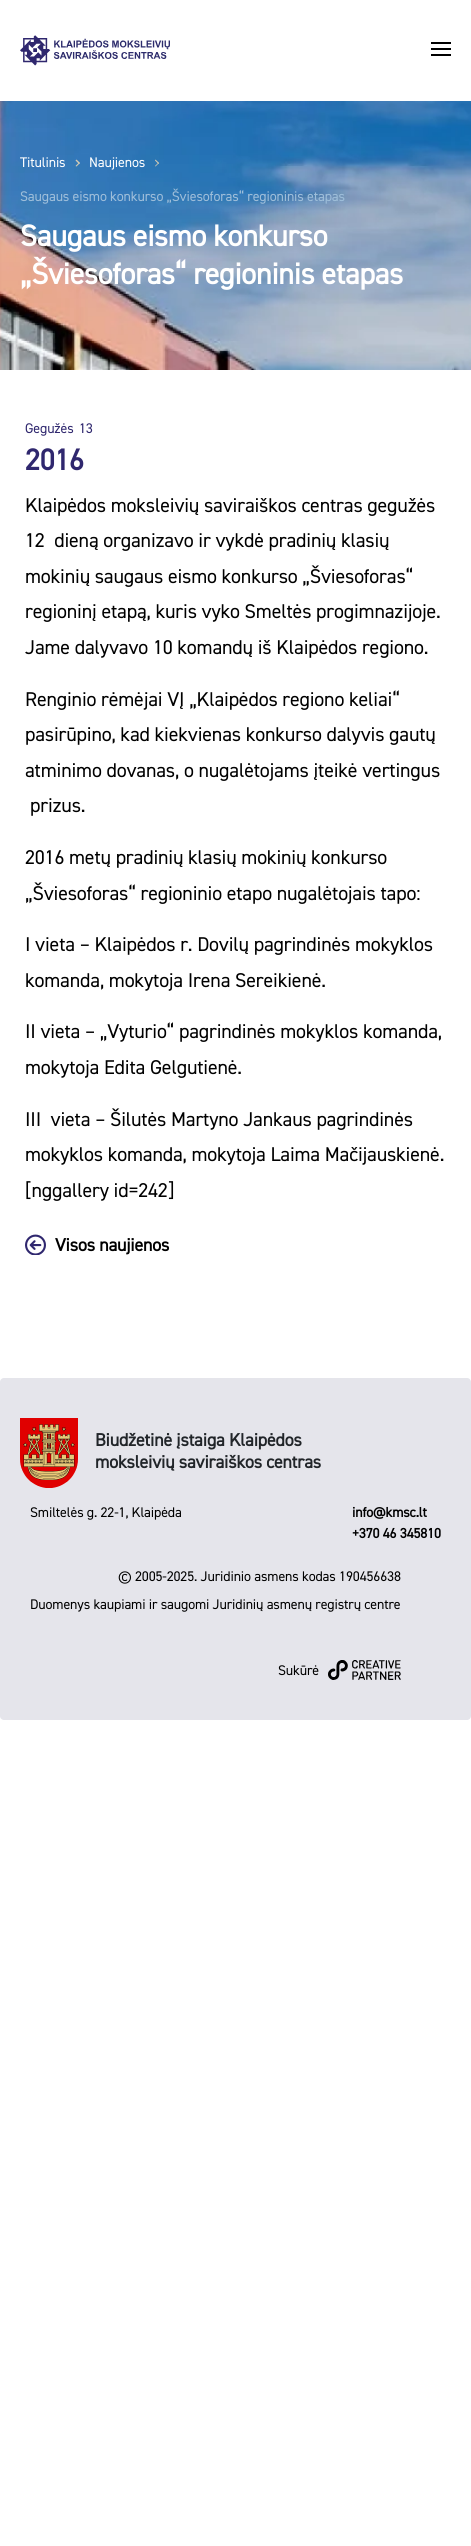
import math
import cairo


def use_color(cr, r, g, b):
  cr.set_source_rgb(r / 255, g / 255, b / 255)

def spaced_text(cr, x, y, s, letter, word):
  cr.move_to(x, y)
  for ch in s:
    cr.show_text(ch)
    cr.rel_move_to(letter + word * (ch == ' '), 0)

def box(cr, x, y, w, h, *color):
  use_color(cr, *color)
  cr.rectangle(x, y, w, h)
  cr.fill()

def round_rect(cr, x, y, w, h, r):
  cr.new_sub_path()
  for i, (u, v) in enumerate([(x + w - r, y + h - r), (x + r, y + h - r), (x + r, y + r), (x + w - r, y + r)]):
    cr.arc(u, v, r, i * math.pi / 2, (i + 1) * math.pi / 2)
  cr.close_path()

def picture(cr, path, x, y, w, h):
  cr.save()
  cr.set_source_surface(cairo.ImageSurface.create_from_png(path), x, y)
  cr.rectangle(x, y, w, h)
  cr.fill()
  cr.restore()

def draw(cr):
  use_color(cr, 255, 255, 255)
  cr.paint()
  picture(cr, "img_01.png", 20, 35, 150, 31)
  box(cr, 431, 42, 20, 2, 0, 0, 0)
  box(cr, 431, 48, 20, 2, 0, 0, 0)
  box(cr, 431, 54, 20, 2, 0, 0, 0)
  picture(cr, "img_02.png", 0, 101, 471, 269)
  use_color(cr, 215, 204, 178)
  cr.new_path()
  cr.move_to(80, 163)
  cr.line_to(76.5, 166.5)
  cr.line_to(75.5, 166)
  cr.line_to(79, 162.5)
  cr.close_path()
  cr.fill()
  cr.new_path()
  cr.move_to(80, 163)
  cr.line_to(79, 164)
  cr.line_to(75.5, 160.5)
  cr.line_to(76.5, 159.5)
  cr.close_path()
  cr.fill()
  cr.new_path()
  cr.move_to(159, 163)
  cr.line_to(155.5, 166.5)
  cr.line_to(155, 166)
  cr.line_to(158.5, 162.5)
  cr.close_path()
  cr.fill()
  cr.new_path()
  cr.move_to(159, 163)
  cr.line_to(158.5, 164)
  cr.line_to(155, 160.5)
  cr.line_to(155.5, 159.5)
  cr.close_path()
  cr.fill()
  picture(cr, "img_03.png", 25, 1234, 21, 21)
  use_color(cr, 229, 229, 235)
  round_rect(cr, 0, 1378, 471, 342, 4)
  cr.fill()
  picture(cr, "img_04.png", 20, 1418, 58, 70)
  picture(cr, "img_05.png", 328, 1660, 73, 20)
  cr.select_font_face("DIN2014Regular")
  cr.set_font_size(14)
  use_color(cr, 255, 255, 255)
  spaced_text(cr, 20, 167, "Titulinis", -0.15, 0)
  spaced_text(cr, 89, 167, "Naujienos", -0.15, 0)
  use_color(cr, 158, 190, 218)
  spaced_text(cr, 20, 201, "Saugaus eismo konkurso „Šviesoforas“ regioninis etapas", -0.15, 0)
  cr.select_font_face("DIN2014Regular", cairo.FONT_SLANT_NORMAL, cairo.FONT_WEIGHT_BOLD)
  cr.set_font_size(30)
  use_color(cr, 255, 255, 255)
  spaced_text(cr, 20, 246, "Saugaus eismo konkurso", -0.3, 0)
  spaced_text(cr, 20, 284, "„Šviesoforas“ regioninis etapas", -0.3, 0)
  cr.select_font_face("DIN2014Regular")
  cr.set_font_size(14)
  use_color(cr, 47, 39, 110)
  spaced_text(cr, 25, 433, "Gegužės", -0.15, 0)
  spaced_text(cr, 79, 433, "13", -0.15, 0)
  cr.select_font_face("DIN2014Regular", cairo.FONT_SLANT_NORMAL, cairo.FONT_WEIGHT_BOLD)
  cr.set_font_size(30)
  spaced_text(cr, 25, 470, "2016", -0.3, 0)
  cr.select_font_face("DIN2014Regular")
  cr.set_font_size(20)
  use_color(cr, 0, 0, 0)
  spaced_text(cr, 25, 512, "Klaipėdos moksleivių saviraiškos centras gegužės", -0.2, 0)
  spaced_text(cr, 25, 547, "12  dieną organizavo ir vykdė pradinių klasių", -0.2, 0)
  spaced_text(cr, 25, 583, "mokinių saugaus eismo konkurso „Šviesoforas“", -0.2, 0)
  spaced_text(cr, 25, 618, "regioninį etapą, kuris vyko Smeltės progimnazijoje.", -0.2, 0)
  spaced_text(cr, 25, 654, "Jame dalyvavo 10 komandų iš Klaipėdos regiono.", -0.2, 0)
  spaced_text(cr, 25, 706, "Renginio rėmėjai VĮ „Klaipėdos regiono keliai“", -0.2, 0)
  spaced_text(cr, 25, 741, "pasirūpino, kad kiekvienas konkurso dalyvis gautų", -0.2, 0)
  spaced_text(cr, 25, 777, "atminimo dovanas, o nugalėtojams įteikė vertingus", -0.2, 0)
  spaced_text(cr, 30, 812, "prizus.", -0.2, 0)
  spaced_text(cr, 25, 864, "2016 metų pradinių klasių mokinių konkurso", -0.2, 0)
  spaced_text(cr, 25, 900, "„Šviesoforas“ regioninio etapo nugalėtojais tapo:", -0.2, 0)
  spaced_text(cr, 25, 951, "I vieta – Klaipėdos r. Dovilų pagrindinės mokyklos", -0.2, 0)
  spaced_text(cr, 25, 987, "komanda, mokytoja Irena Sereikienė.", -0.2, 0)
  spaced_text(cr, 25, 1038, "II vieta – „Vyturio“ pagrindinės mokyklos komanda,", -0.2, 0)
  spaced_text(cr, 25, 1074, "mokytoja Edita Gelgutienė.", -0.2, 0)
  spaced_text(cr, 25, 1126, "III  vieta – Šilutės Martyno Jankaus pagrindinės", -0.2, 0)
  spaced_text(cr, 25, 1161, "mokyklos komanda, mokytoja Laima Mačijauskienė.", -0.2, 0)
  spaced_text(cr, 25, 1197, "[nggallery id=242]", -0.2, 0)
  cr.select_font_face("DIN2014Regular", cairo.FONT_SLANT_NORMAL, cairo.FONT_WEIGHT_BOLD)
  cr.set_font_size(18)
  spaced_text(cr, 55, 1251, "Visos naujienos", -0.2, 0)
  use_color(cr, 33, 37, 41)
  spaced_text(cr, 95, 1446, "Biudžetinė įstaiga Klaipėdos", -0.2, 0)
  spaced_text(cr, 95, 1468, "moksleivių saviraiškos centras", -0.2, 0)
  cr.select_font_face("DIN2014Regular")
  cr.set_font_size(14)
  use_color(cr, 0, 0, 0)
  spaced_text(cr, 30, 1517, "Smiltelės g. 22-1, Klaipėda", -0.15, 0)
  cr.select_font_face("DIN2014Regular", cairo.FONT_SLANT_NORMAL, cairo.FONT_WEIGHT_BOLD)
  spaced_text(cr, 352, 1517, "info@kmsc.lt", -0.15, 0)
  spaced_text(cr, 352, 1538, "+370 46 345810", -0.15, 0)
  cr.select_font_face("DIN2014Regular")
  spaced_text(cr, 118, 1581, "© 2005-2025. Juridinio asmens kodas 190456638", -0.15, 0)
  spaced_text(cr, 30, 1609, "Duomenys kaupiami ir saugomi Juridinių asmenų registrų centre", -0.15, 0)
  spaced_text(cr, 278, 1675, "Sukūrė", -0.15, 0)


surface = cairo.ImageSurface(cairo.FORMAT_RGB24, 471, 2546)
cr = cairo.Context(surface)
options = cairo.FontOptions()
options.set_hint_metrics(cairo.HINT_METRICS_OFF)
options.set_hint_style(cairo.HINT_STYLE_NONE)
cr.set_font_options(options)
cr.set_miter_limit(4)
draw(cr)
surface.write_to_png("out.png")
